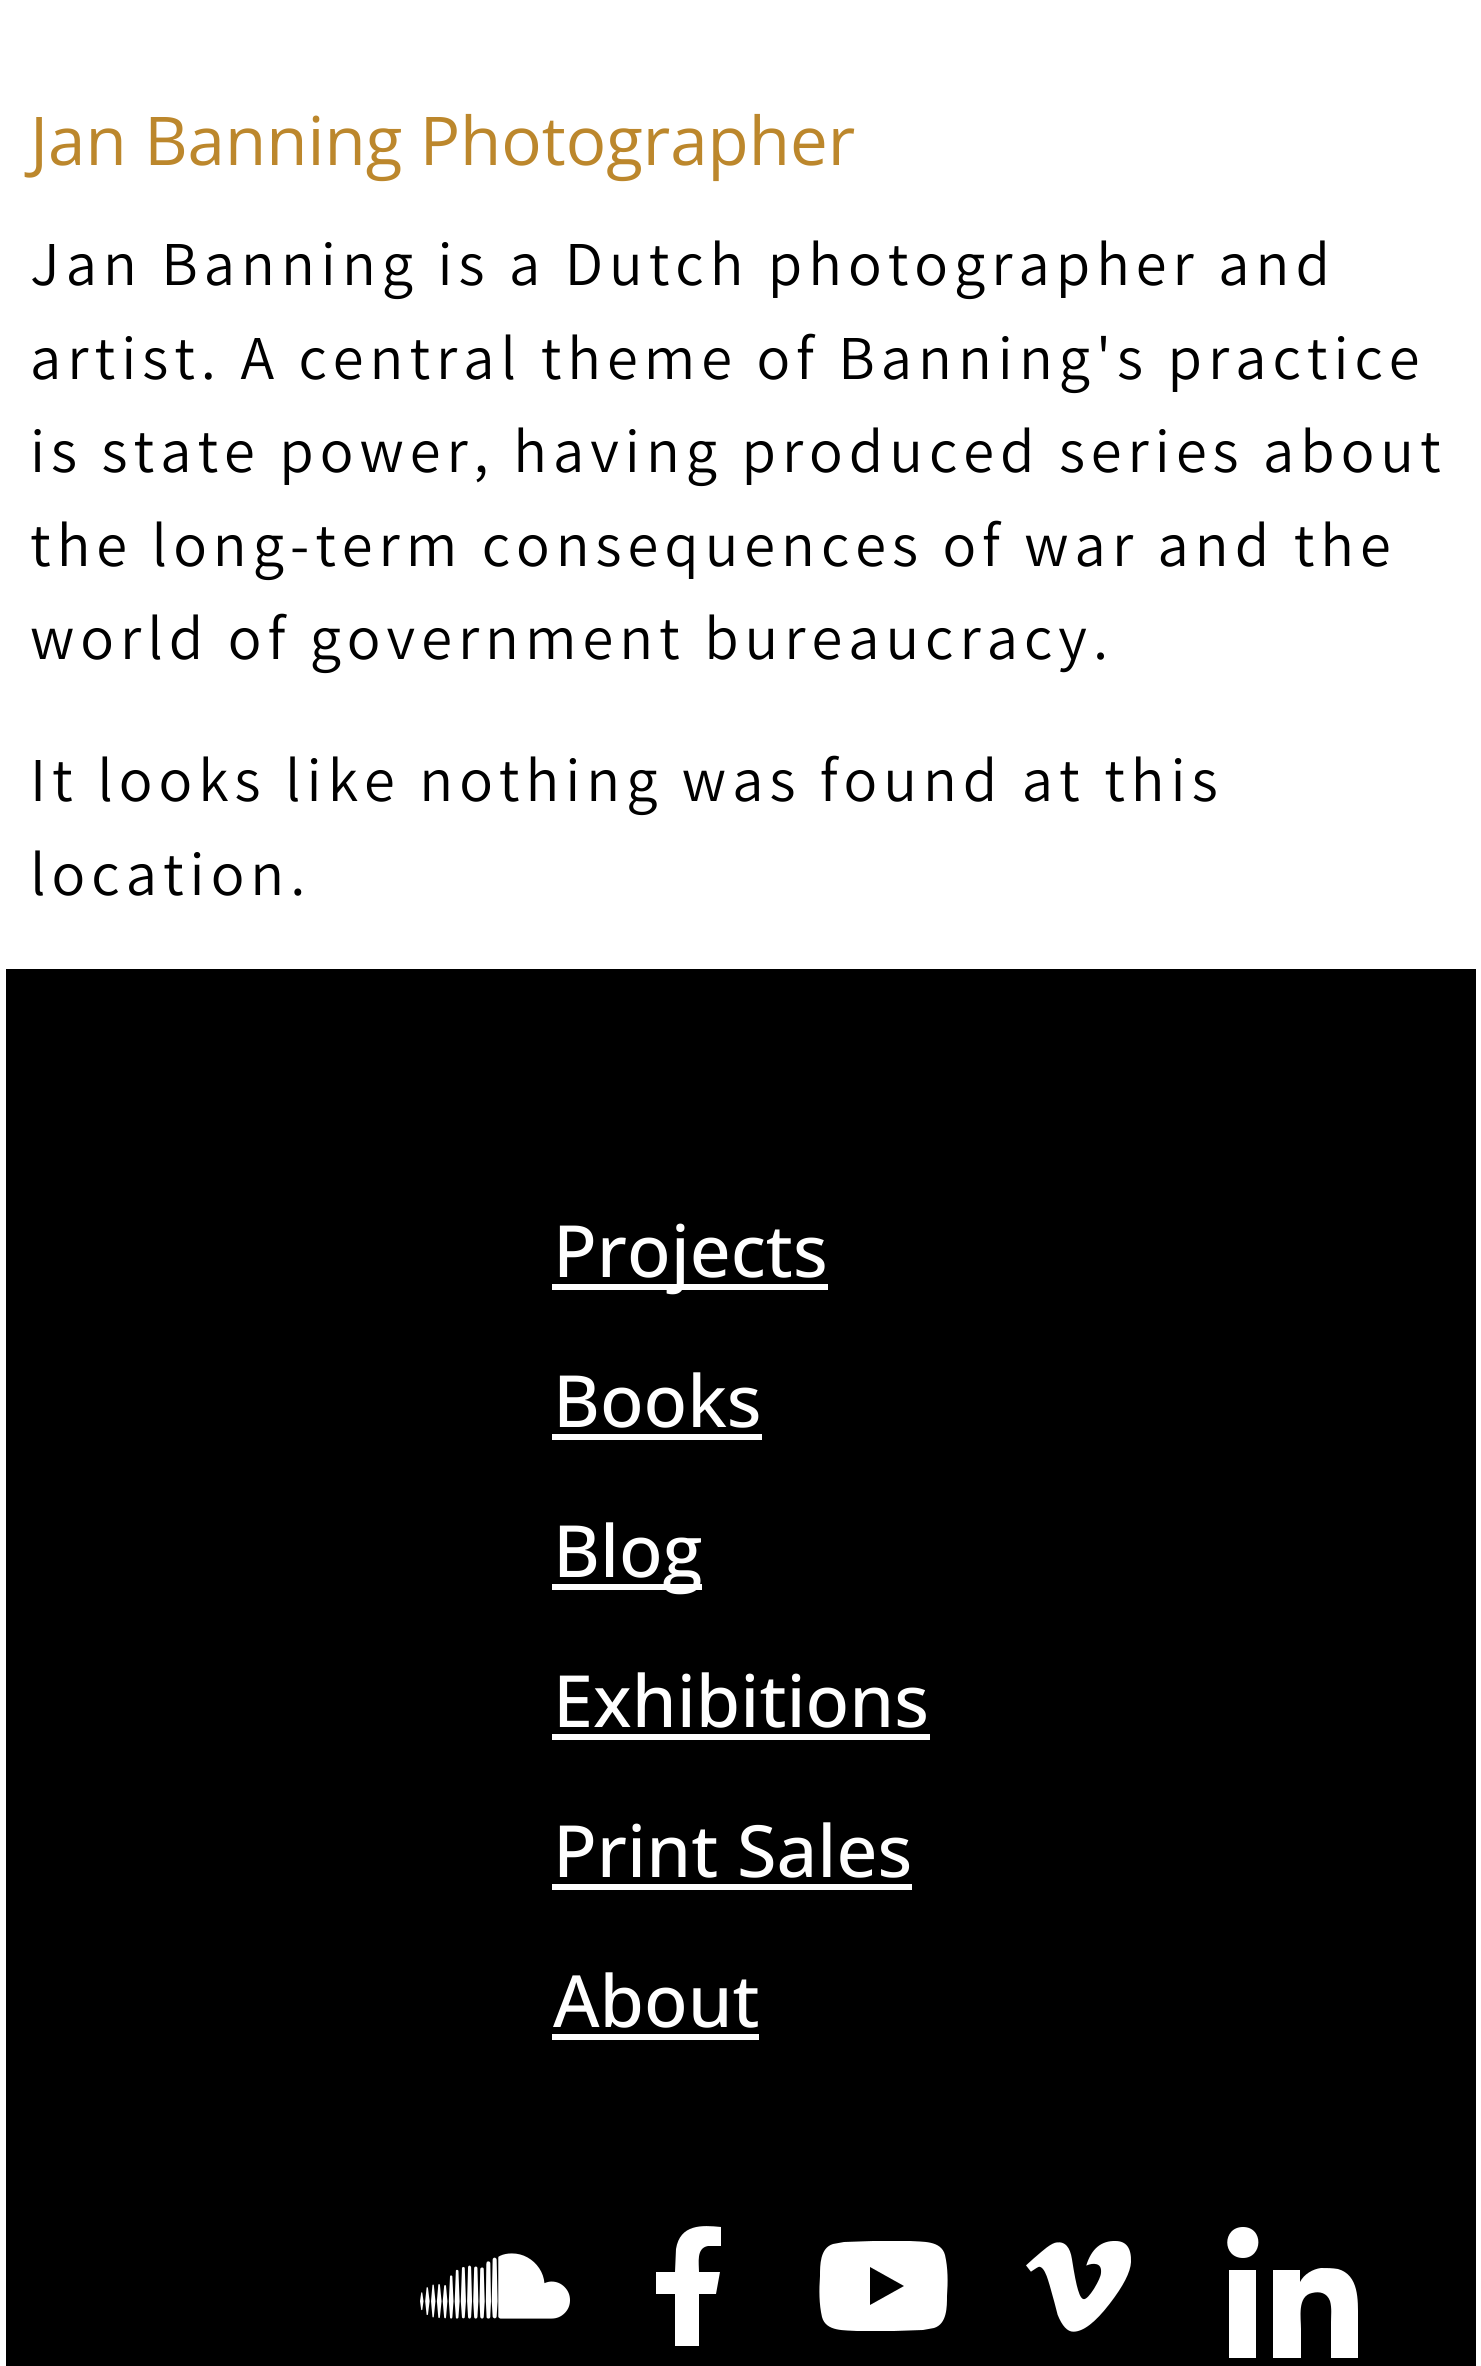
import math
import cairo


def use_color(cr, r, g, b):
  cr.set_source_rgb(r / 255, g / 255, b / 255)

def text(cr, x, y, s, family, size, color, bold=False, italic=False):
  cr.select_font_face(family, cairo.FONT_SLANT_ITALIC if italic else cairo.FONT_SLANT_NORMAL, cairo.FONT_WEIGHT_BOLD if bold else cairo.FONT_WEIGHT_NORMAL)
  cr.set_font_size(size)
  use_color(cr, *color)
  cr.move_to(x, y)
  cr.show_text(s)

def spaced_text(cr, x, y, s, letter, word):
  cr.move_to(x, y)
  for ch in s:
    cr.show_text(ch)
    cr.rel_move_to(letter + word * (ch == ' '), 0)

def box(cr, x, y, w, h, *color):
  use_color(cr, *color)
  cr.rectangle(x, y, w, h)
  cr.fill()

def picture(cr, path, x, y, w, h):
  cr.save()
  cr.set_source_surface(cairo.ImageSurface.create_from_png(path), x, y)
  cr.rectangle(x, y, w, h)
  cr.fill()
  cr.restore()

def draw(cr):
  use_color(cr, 255, 255, 255)
  cr.paint()
  box(cr, 6, 969, 1470, 1397, 0, 0, 0)
  box(cr, 552, 1284, 276, 6, 255, 255, 255)
  box(cr, 552, 1434, 210, 6, 255, 255, 255)
  box(cr, 552, 1584, 150, 6, 255, 255, 255)
  box(cr, 552, 1734, 378, 6, 255, 255, 255)
  box(cr, 552, 1884, 360, 6, 255, 255, 255)
  box(cr, 552, 2034, 207, 6, 255, 255, 255)
  picture(cr, "img_01.png", 420, 2253, 150, 66)
  cr.new_path()
  cr.move_to(716, 2294)
  cr.line_to(699, 2294)
  cr.line_to(699, 2346)
  cr.line_to(675, 2346)
  cr.line_to(675, 2294)
  cr.line_to(656, 2294)
  cr.line_to(656, 2272)
  cr.line_to(675, 2272)
  cr.line_to(676, 2249)
  cr.curve_to(680, 2224, 702, 2225, 721, 2227)
  cr.line_to(721, 2246)
  cr.line_to(708, 2246)
  cr.curve_to(696, 2248, 699, 2263, 699, 2272)
  cr.line_to(720, 2272)
  cr.close_path()
  cr.fill()
  cr.new_path()
  cr.move_to(945, 2255)
  cr.curve_to(948, 2268, 948, 2282, 947, 2296)
  cr.curve_to(947, 2307, 947, 2324, 934, 2328)
  cr.line_to(923, 2330)
  cr.line_to(894, 2331)
  cr.line_to(857, 2331)
  cr.curve_to(845, 2330, 826, 2332, 822, 2317)
  cr.curve_to(819, 2304, 819, 2290, 820, 2276)
  cr.curve_to(820, 2265, 820, 2248, 833, 2244)
  cr.line_to(844, 2242)
  cr.line_to(873, 2241)
  cr.line_to(910, 2241)
  cr.curve_to(922, 2242, 941, 2240, 945, 2255)
  cr.close_path()
  cr.move_to(870, 2305)
  cr.line_to(904, 2286)
  cr.line_to(870, 2267)
  cr.close_path()
  cr.fill()
  picture(cr, "img_02.png", 1026, 2241, 105, 91)
  cr.new_path()
  cr.move_to(1256, 2358)
  cr.line_to(1229, 2358)
  cr.line_to(1229, 2270)
  cr.line_to(1256, 2270)
  cr.close_path()
  cr.move_to(1243, 2258)
  cr.curve_to(1222, 2258, 1222, 2227, 1243, 2227)
  cr.curve_to(1264, 2227, 1263, 2258, 1243, 2258)
  cr.close_path()
  cr.move_to(1358, 2358)
  cr.line_to(1331, 2358)
  cr.line_to(1331, 2322)
  cr.curve_to(1331, 2316, 1332, 2308, 1330, 2301)
  cr.curve_to(1327, 2293, 1320, 2291, 1312, 2293)
  cr.curve_to(1297, 2296, 1301, 2318, 1301, 2329)
  cr.line_to(1301, 2358)
  cr.line_to(1273, 2358)
  cr.line_to(1273, 2270)
  cr.line_to(1300, 2270)
  cr.line_to(1300, 2282)
  cr.curve_to(1304, 2274, 1313, 2269, 1321, 2268)
  cr.curve_to(1327, 2268, 1332, 2268, 1338, 2269)
  cr.curve_to(1359, 2275, 1358, 2300, 1358, 2318)
  cr.close_path()
  cr.fill()
  text(cr, 30, 165, "Jan Banning Photographer", "Open Sans", 67.25, (188, 135, 44))
  cr.select_font_face("Assistant")
  cr.set_font_size(62.4)
  use_color(cr, 0, 0, 0)
  spaced_text(cr, 30, 285, "Jan Banning is a Dutch photographer and", 6, 0)
  spaced_text(cr, 30, 379, "artist. A central theme of Banning's practice", 6, 0)
  spaced_text(cr, 30, 472, "is state power, having produced series about", 6, 0)
  spaced_text(cr, 30, 566, "the long-term consequences of war and the", 6, 0)
  spaced_text(cr, 30, 659, "world of government bureaucracy.", 6, 0)
  spaced_text(cr, 30, 801, "It looks like nothing was found at this", 6, 0)
  spaced_text(cr, 30, 895, "location.", 6, 0)
  text(cr, 553, 1277, "Projects", "Open Sans Medium", 72, (255, 255, 255))
  text(cr, 553, 1427, "Books", "Open Sans Medium", 72, (255, 255, 255))
  text(cr, 553, 1577, "Blog", "Open Sans Medium", 72, (255, 255, 255))
  text(cr, 553, 1727, "Exhibitions", "Open Sans Medium", 72, (255, 255, 255))
  text(cr, 553, 1877, "Print Sales", "Open Sans Medium", 72, (255, 255, 255))
  text(cr, 553, 2027, "About", "Open Sans Medium", 72, (255, 255, 255))


surface = cairo.ImageSurface(cairo.FORMAT_RGB24, 1481, 2366)
cr = cairo.Context(surface)
options = cairo.FontOptions()
options.set_hint_metrics(cairo.HINT_METRICS_OFF)
options.set_hint_style(cairo.HINT_STYLE_NONE)
cr.set_font_options(options)
cr.set_miter_limit(4)
draw(cr)
surface.write_to_png("out.png")
